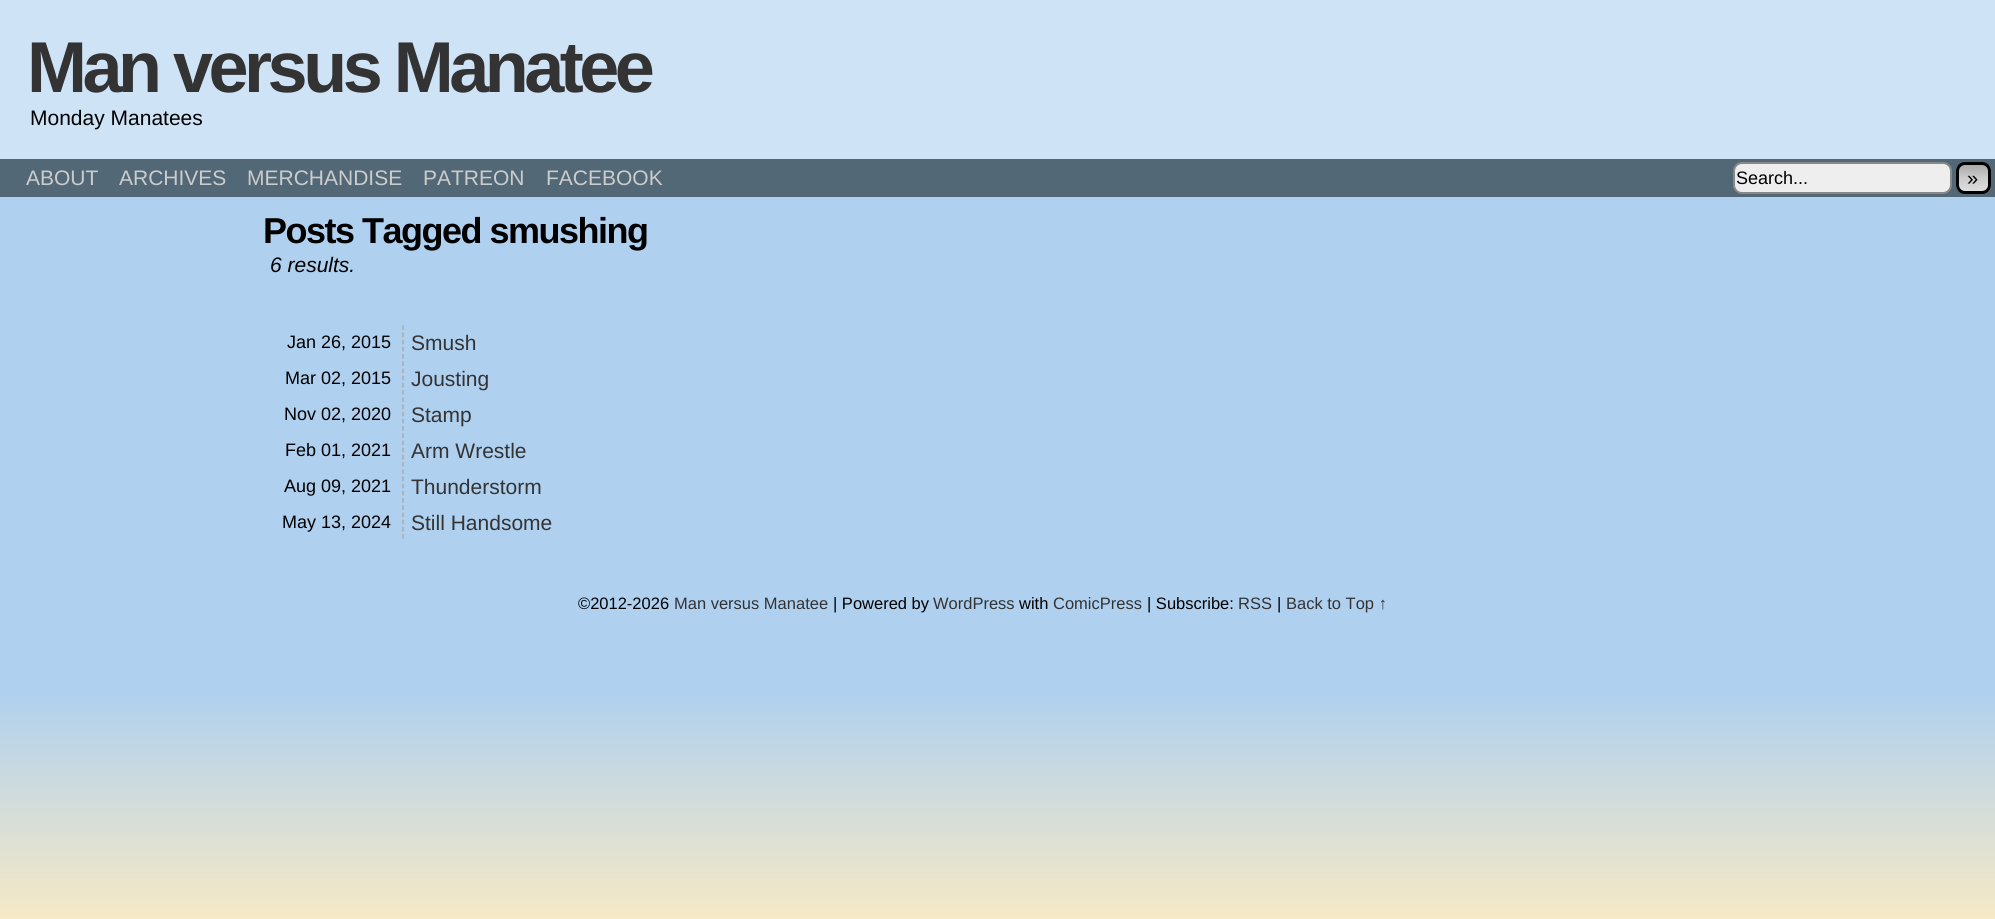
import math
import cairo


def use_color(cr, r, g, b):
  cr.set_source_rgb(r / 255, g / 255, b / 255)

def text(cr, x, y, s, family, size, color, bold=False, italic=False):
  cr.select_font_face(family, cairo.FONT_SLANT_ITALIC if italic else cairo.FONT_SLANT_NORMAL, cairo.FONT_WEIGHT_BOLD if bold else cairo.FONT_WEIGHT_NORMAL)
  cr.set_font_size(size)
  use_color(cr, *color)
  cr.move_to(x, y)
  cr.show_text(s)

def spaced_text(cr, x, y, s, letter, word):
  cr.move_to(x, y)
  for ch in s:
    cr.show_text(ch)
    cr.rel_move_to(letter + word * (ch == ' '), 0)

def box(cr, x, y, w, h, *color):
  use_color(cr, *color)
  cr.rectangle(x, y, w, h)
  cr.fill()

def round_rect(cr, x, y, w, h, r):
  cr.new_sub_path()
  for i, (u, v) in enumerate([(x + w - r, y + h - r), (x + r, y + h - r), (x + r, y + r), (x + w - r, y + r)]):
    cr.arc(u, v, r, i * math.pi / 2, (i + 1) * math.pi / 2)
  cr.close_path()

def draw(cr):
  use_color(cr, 255, 255, 255)
  cr.paint()
  gradient = cairo.LinearGradient(998, 0, 998, 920)
  gradient.add_color_stop_rgba(0.75, 0.686, 0.816, 0.937, 1)
  gradient.add_color_stop_rgba(1, 0.965, 0.914, 0.776, 1)
  cr.set_source(gradient)
  cr.rectangle(0, 197, 1995, 722)
  cr.fill()
  box(cr, 0, 0, 1995, 159, 207, 227, 246)
  box(cr, 0, 159, 1995, 38, 82, 104, 119)
  use_color(cr, 238, 238, 238)
  round_rect(cr, 1734, 163, 217, 30, 8)
  cr.fill_preserve()
  use_color(cr, 136, 136, 136)
  cr.stroke()
  cr.save()
  round_rect(cr, 1956, 162, 35, 32, 9)
  cr.clip()
  gradient = cairo.LinearGradient(1973, 165, 1973, 191)
  gradient.add_color_stop_rgba(0, 0.667, 0.667, 0.667, 1)
  gradient.add_color_stop_rgba(0.5, 0.8, 0.8, 0.8, 1)
  gradient.add_color_stop_rgba(1, 0.867, 0.867, 0.867, 1)
  cr.set_source(gradient)
  cr.rectangle(1956, 165, 35, 26)
  cr.fill()
  cr.restore()
  round_rect(cr, 1957.5, 163.5, 32, 29, 7.5)
  use_color(cr, 0, 0, 0)
  cr.set_line_width(3)
  cr.stroke()
  cr.new_path()
  cr.move_to(403, 325.5)
  cr.line_to(403, 358.5)
  use_color(cr, 170, 170, 170)
  cr.set_line_width(1.5)
  cr.set_dash([4.5, 2.62])
  cr.stroke()
  cr.new_path()
  cr.move_to(403, 361.5)
  cr.line_to(403, 394.5)
  cr.stroke()
  cr.new_path()
  cr.move_to(403, 397.5)
  cr.line_to(403, 430.5)
  cr.stroke()
  cr.new_path()
  cr.move_to(403, 433.5)
  cr.line_to(403, 466.5)
  cr.stroke()
  cr.new_path()
  cr.move_to(403, 469.5)
  cr.line_to(403, 502.5)
  cr.stroke()
  cr.new_path()
  cr.move_to(403, 505.5)
  cr.line_to(403, 538.5)
  cr.stroke()
  cr.select_font_face("Liberation Sans", cairo.FONT_SLANT_NORMAL, cairo.FONT_WEIGHT_BOLD)
  cr.set_font_size(72)
  use_color(cr, 51, 51, 51)
  spaced_text(cr, 27, 92, "Man versus Manatee", -4.5, 0)
  text(cr, 30, 125, "Monday Manatees", "Liberation Sans", 21, (0, 0, 0))
  text(cr, 26, 185, "ABOUT", "Liberation Sans", 21, (204, 204, 204))
  text(cr, 119, 185, "ARCHIVES", "Liberation Sans", 21, (204, 204, 204))
  text(cr, 247, 185, "MERCHANDISE", "Liberation Sans", 21, (204, 204, 204))
  text(cr, 423, 185, "PATREON", "Liberation Sans", 21, (204, 204, 204))
  text(cr, 546, 185, "FACEBOOK", "Liberation Sans", 21, (204, 204, 204))
  text(cr, 1736, 184, "Search...", "Liberation Sans", 18, (0, 0, 0))
  text(cr, 1967, 185, "»", "Liberation Sans", 20, (0, 0, 0))
  cr.select_font_face("Liberation Sans", cairo.FONT_SLANT_NORMAL, cairo.FONT_WEIGHT_BOLD)
  cr.set_font_size(36)
  spaced_text(cr, 263, 243, "Posts Tagged smushing", -1.5, 0)
  text(cr, 270, 272, "6 results.", "Liberation Sans", 21, (0, 0, 0), italic=True)
  text(cr, 287, 348, "Jan 26, 2015", "Liberation Sans", 18, (0, 0, 0))
  text(cr, 411, 350, "Smush", "Liberation Sans", 21, (51, 51, 51))
  text(cr, 285, 384, "Mar 02, 2015", "Liberation Sans", 18, (0, 0, 0))
  text(cr, 411, 386, "Jousting", "Liberation Sans", 21, (51, 51, 51))
  text(cr, 284, 420, "Nov 02, 2020", "Liberation Sans", 18, (0, 0, 0))
  text(cr, 411, 422, "Stamp", "Liberation Sans", 21, (51, 51, 51))
  text(cr, 285, 456, "Feb 01, 2021", "Liberation Sans", 18, (0, 0, 0))
  text(cr, 411, 458, "Arm Wrestle", "Liberation Sans", 21, (51, 51, 51))
  text(cr, 284, 492, "Aug 09, 2021", "Liberation Sans", 18, (0, 0, 0))
  text(cr, 411, 494, "Thunderstorm", "Liberation Sans", 21, (51, 51, 51))
  text(cr, 282, 528, "May 13, 2024", "Liberation Sans", 18, (0, 0, 0))
  text(cr, 411, 530, "Still Handsome", "Liberation Sans", 21, (51, 51, 51))
  text(cr, 578, 609, "©2012-2026", "Liberation Sans", 16.5, (0, 0, 0))
  text(cr, 674, 609, "Man versus Manatee", "Liberation Sans", 16.5, (51, 51, 51))
  text(cr, 833, 609, "| Powered by", "Liberation Sans", 16.5, (0, 0, 0))
  text(cr, 933, 609, "WordPress", "Liberation Sans", 16.5, (51, 51, 51))
  text(cr, 1019, 609, "with", "Liberation Sans", 16.5, (0, 0, 0))
  text(cr, 1053, 609, "ComicPress", "Liberation Sans", 16.5, (51, 51, 51))
  text(cr, 1147, 609, "| Subscribe:", "Liberation Sans", 16.5, (0, 0, 0))
  text(cr, 1238, 609, "RSS", "Liberation Sans", 16.5, (51, 51, 51))
  text(cr, 1277, 609, "|", "Liberation Sans", 16.5, (0, 0, 0))
  text(cr, 1286, 609, "Back to Top ↑", "Liberation Sans", 16.5, (51, 51, 51))


surface = cairo.ImageSurface(cairo.FORMAT_RGB24, 1995, 919)
cr = cairo.Context(surface)
options = cairo.FontOptions()
options.set_hint_metrics(cairo.HINT_METRICS_OFF)
options.set_hint_style(cairo.HINT_STYLE_NONE)
cr.set_font_options(options)
cr.set_miter_limit(4)
draw(cr)
surface.write_to_png("out.png")
